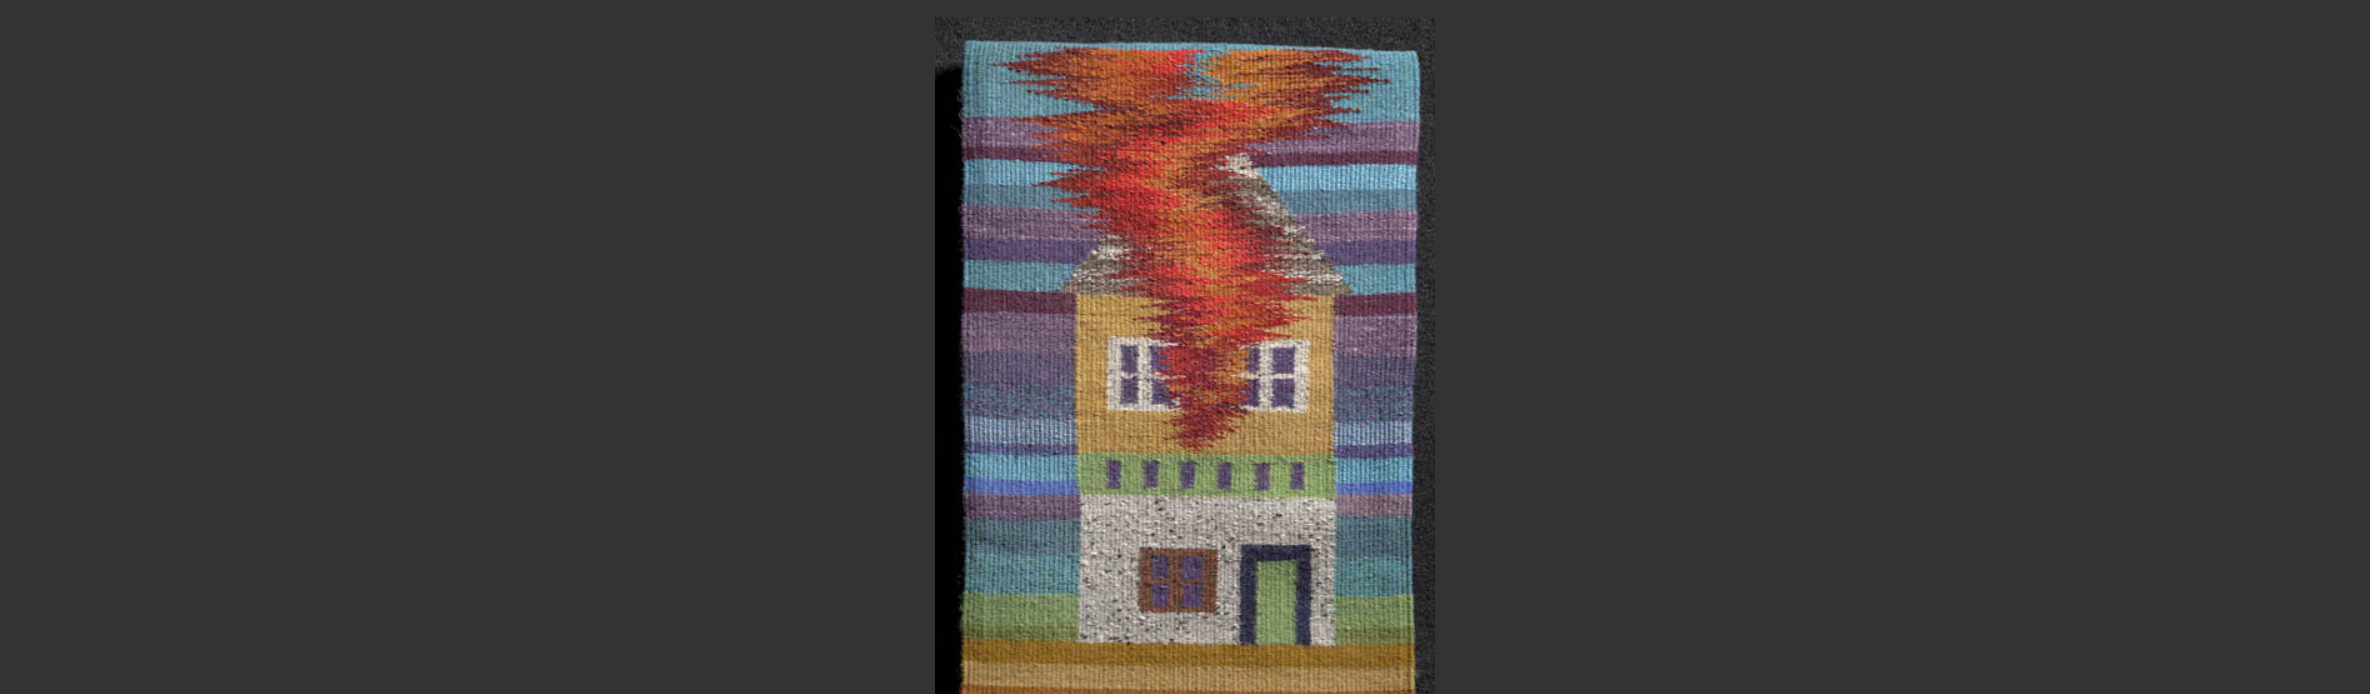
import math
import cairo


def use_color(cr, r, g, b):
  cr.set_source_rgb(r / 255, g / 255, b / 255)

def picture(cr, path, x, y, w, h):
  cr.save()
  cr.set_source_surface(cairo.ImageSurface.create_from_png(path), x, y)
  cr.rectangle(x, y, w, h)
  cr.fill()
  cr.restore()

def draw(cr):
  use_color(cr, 51, 51, 51)
  cr.paint()
  picture(cr, "img_01.png", 935, 17, 500, 677)


surface = cairo.ImageSurface(cairo.FORMAT_RGB24, 2370, 694)
cr = cairo.Context(surface)
options = cairo.FontOptions()
options.set_hint_metrics(cairo.HINT_METRICS_OFF)
options.set_hint_style(cairo.HINT_STYLE_NONE)
cr.set_font_options(options)
cr.set_miter_limit(4)
draw(cr)
surface.write_to_png("out.png")
